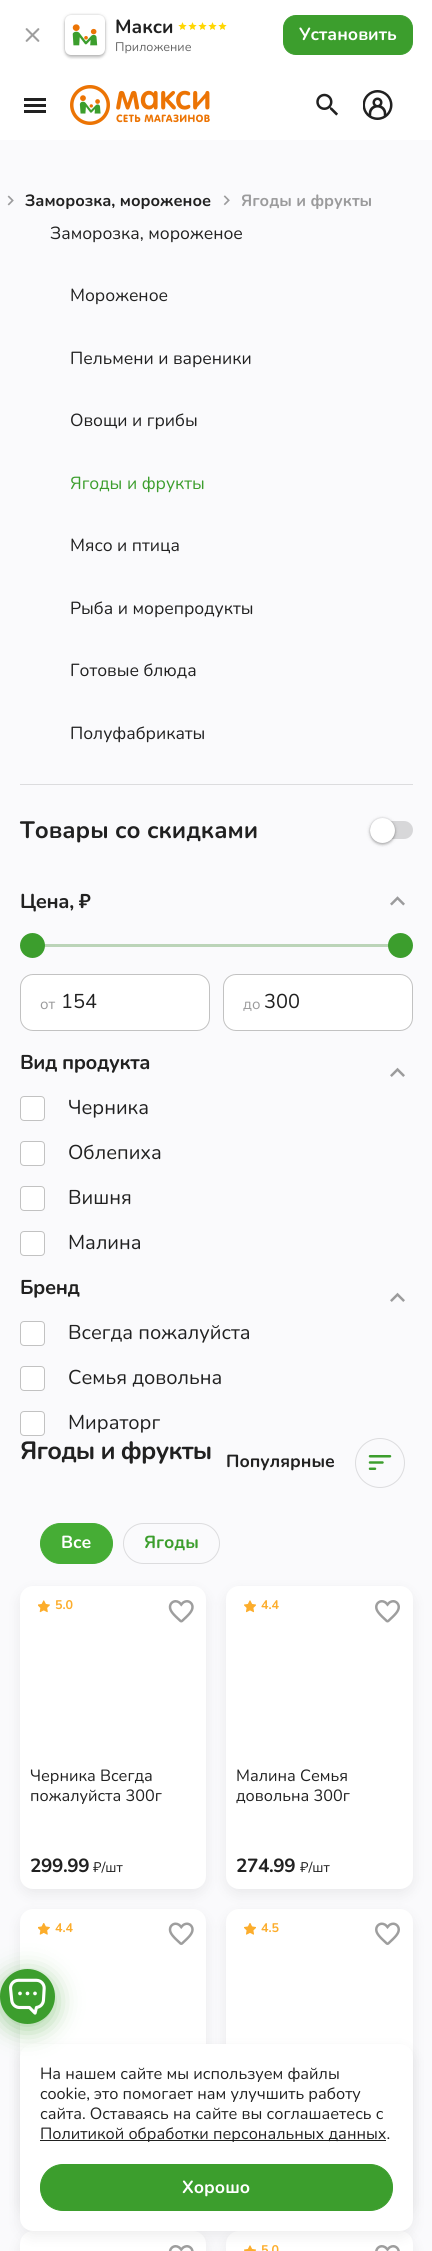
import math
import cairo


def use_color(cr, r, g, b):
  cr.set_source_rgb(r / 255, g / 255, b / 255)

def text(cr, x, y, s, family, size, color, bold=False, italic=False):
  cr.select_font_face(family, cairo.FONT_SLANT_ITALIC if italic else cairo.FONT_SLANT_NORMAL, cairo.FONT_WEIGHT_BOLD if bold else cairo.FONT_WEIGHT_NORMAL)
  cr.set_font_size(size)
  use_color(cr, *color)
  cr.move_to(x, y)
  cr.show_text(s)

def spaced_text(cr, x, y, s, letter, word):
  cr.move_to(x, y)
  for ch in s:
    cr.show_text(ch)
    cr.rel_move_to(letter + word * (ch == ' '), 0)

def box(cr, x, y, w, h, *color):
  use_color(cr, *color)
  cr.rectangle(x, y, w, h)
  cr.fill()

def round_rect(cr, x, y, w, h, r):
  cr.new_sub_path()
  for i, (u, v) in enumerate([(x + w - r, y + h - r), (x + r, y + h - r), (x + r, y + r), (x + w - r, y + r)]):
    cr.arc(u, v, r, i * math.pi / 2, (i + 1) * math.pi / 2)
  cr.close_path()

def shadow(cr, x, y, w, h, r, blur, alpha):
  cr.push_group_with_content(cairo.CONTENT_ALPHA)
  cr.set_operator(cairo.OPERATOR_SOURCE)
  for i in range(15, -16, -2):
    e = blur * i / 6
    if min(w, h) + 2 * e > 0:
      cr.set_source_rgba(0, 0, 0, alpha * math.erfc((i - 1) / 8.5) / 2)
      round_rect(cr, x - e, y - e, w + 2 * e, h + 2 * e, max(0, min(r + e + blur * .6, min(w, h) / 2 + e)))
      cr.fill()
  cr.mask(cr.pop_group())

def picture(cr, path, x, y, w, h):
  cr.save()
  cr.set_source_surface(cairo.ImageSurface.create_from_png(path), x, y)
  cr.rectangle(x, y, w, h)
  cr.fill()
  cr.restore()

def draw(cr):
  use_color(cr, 250, 250, 252)
  cr.paint()
  box(cr, 0, 0, 432, 140, 255, 255, 255)
  picture(cr, "img_01.png", 25, 28, 15, 14)
  use_color(cr, 0, 0, 0)
  shadow(cr, 65, 16, 40, 40, 6, 2, 0.2)
  shadow(cr, 65, 18, 40, 40, 6, 1, 0.12)
  shadow(cr, 65, 15, 40, 40, 6, 1, 0.14)
  use_color(cr, 255, 255, 255)
  round_rect(cr, 65, 15, 40, 40, 6)
  cr.fill()
  picture(cr, "img_02.png", 72, 24, 26, 22)
  picture(cr, "img_03.png", 178, 22, 9, 8)
  picture(cr, "img_03.png", 188, 22, 9, 8)
  picture(cr, "img_03.png", 198, 22, 9, 8)
  picture(cr, "img_03.png", 208, 22, 9, 8)
  picture(cr, "img_03.png", 218, 22, 9, 8)
  use_color(cr, 60, 158, 45)
  round_rect(cr, 283.5, 15.5, 129, 39, 12.5)
  cr.fill_preserve()
  cr.set_line_width(1)
  cr.stroke()
  box(cr, 24, 104, 22, 3, 33, 33, 33)
  box(cr, 24, 98, 22, 3, 33, 33, 33)
  box(cr, 24, 110, 22, 3, 33, 33, 33)
  picture(cr, "img_04.png", 70, 85, 140, 40)
  picture(cr, "img_05.png", 316, 93, 22, 23)
  picture(cr, "img_06.png", 363, 90, 30, 30)
  picture(cr, "img_07.png", 7, 195, 7, 11)
  picture(cr, "img_08.png", 223, 195, 7, 11)
  box(cr, 20, 784, 393, 1, 220, 220, 222)
  use_color(cr, 215, 215, 217)
  round_rect(cr, 370, 821, 43, 18, 9)
  cr.fill()
  use_color(cr, 0, 0, 0)
  shadow(cr, 370, 818, 25, 25, 12.5, 1, 0.14)
  shadow(cr, 370, 820, 25, 25, 12.5, 1, 0.12)
  shadow(cr, 370, 819, 25, 25, 12.5, 2, 0.2)
  use_color(cr, 255, 255, 255)
  cr.arc(382.5, 830.5, 12.5, 0, 2 * math.pi)
  cr.fill()
  picture(cr, "img_09.png", 390, 896, 15, 10)
  box(cr, 44, 944, 345, 3, 187, 212, 184)
  use_color(cr, 60, 158, 45)
  cr.arc(32.5, 945.5, 12.5, 0, 2 * math.pi)
  cr.fill()
  cr.arc(400.5, 945.5, 12.5, 0, 2 * math.pi)
  cr.fill()
  use_color(cr, 255, 255, 255)
  round_rect(cr, 20.5, 974.5, 189, 56, 12.5)
  cr.fill_preserve()
  use_color(cr, 194, 194, 194)
  cr.stroke()
  use_color(cr, 255, 255, 255)
  round_rect(cr, 223.5, 974.5, 189, 56, 12.5)
  cr.fill_preserve()
  use_color(cr, 194, 194, 194)
  cr.stroke()
  picture(cr, "img_10.png", 390, 1067, 15, 10)
  use_color(cr, 255, 255, 255)
  round_rect(cr, 20.5, 1096.5, 24, 24, 3.5)
  cr.fill_preserve()
  use_color(cr, 194, 194, 194)
  cr.stroke()
  use_color(cr, 255, 255, 255)
  round_rect(cr, 20.5, 1141.5, 24, 24, 3.5)
  cr.fill_preserve()
  use_color(cr, 194, 194, 194)
  cr.stroke()
  use_color(cr, 255, 255, 255)
  round_rect(cr, 20.5, 1186.5, 24, 24, 3.5)
  cr.fill_preserve()
  use_color(cr, 194, 194, 194)
  cr.stroke()
  use_color(cr, 255, 255, 255)
  round_rect(cr, 20.5, 1231.5, 24, 24, 3.5)
  cr.fill_preserve()
  use_color(cr, 194, 194, 194)
  cr.stroke()
  picture(cr, "img_10.png", 390, 1292, 15, 10)
  use_color(cr, 255, 255, 255)
  round_rect(cr, 20.5, 1321.5, 24, 24, 3.5)
  cr.fill_preserve()
  use_color(cr, 194, 194, 194)
  cr.stroke()
  use_color(cr, 255, 255, 255)
  round_rect(cr, 20.5, 1366.5, 24, 24, 3.5)
  cr.fill_preserve()
  use_color(cr, 194, 194, 194)
  cr.stroke()
  use_color(cr, 255, 255, 255)
  round_rect(cr, 20.5, 1411.5, 24, 24, 3.5)
  cr.fill_preserve()
  use_color(cr, 194, 194, 194)
  cr.stroke()
  cr.arc(380, 1463, 24.5, 0, 2 * math.pi)
  use_color(cr, 220, 220, 222)
  cr.stroke()
  picture(cr, "img_11.png", 368, 1455, 24, 15)
  use_color(cr, 70, 173, 53)
  round_rect(cr, 40.5, 1523.5, 72, 40, 20)
  cr.fill_preserve()
  cr.stroke()
  round_rect(cr, 123.5, 1523.5, 96, 40, 20)
  use_color(cr, 220, 220, 222)
  cr.stroke()
  use_color(cr, 0, 0, 0)
  shadow(cr, 20, 1591, 186, 303, 13, 7.5, 0.07)
  use_color(cr, 255, 255, 255)
  round_rect(cr, 20, 1586, 186, 303, 13)
  cr.fill()
  picture(cr, "img_12.png", 38, 1600, 12, 13)
  picture(cr, "img_13.png", 168, 1600, 26, 23)
  use_color(cr, 0, 0, 0)
  shadow(cr, 226, 1591, 187, 303, 13, 7.5, 0.07)
  use_color(cr, 255, 255, 255)
  round_rect(cr, 226, 1586, 187, 303, 13)
  cr.fill()
  picture(cr, "img_14.png", 244, 1600, 12, 13)
  picture(cr, "img_15.png", 375, 1600, 25, 23)
  use_color(cr, 0, 0, 0)
  shadow(cr, 20, 1914, 186, 302, 13, 7.5, 0.07)
  use_color(cr, 255, 255, 255)
  round_rect(cr, 20, 1909, 186, 302, 13)
  cr.fill()
  picture(cr, "img_16.png", 38, 1923, 12, 12)
  picture(cr, "img_17.png", 168, 1922, 26, 23)
  use_color(cr, 0, 0, 0)
  shadow(cr, 226, 1914, 187, 302, 13, 7.5, 0.07)
  use_color(cr, 255, 255, 255)
  round_rect(cr, 226, 1909, 187, 302, 13)
  cr.fill()
  picture(cr, "img_18.png", 244, 1923, 12, 12)
  picture(cr, "img_19.png", 375, 1922, 25, 23)
  use_color(cr, 0, 0, 0)
  shadow(cr, 20, 2236, 186, 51, 13, 7.5, 0.07)
  use_color(cr, 255, 255, 255)
  round_rect(cr, 20, 2231, 186, 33, 13)
  cr.fill()
  picture(cr, "img_20.png", 168, 2245, 26, 6)
  use_color(cr, 0, 0, 0)
  shadow(cr, 226, 2236, 187, 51, 13, 7.5, 0.07)
  use_color(cr, 255, 255, 255)
  round_rect(cr, 226, 2231, 187, 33, 13)
  cr.fill()
  picture(cr, "img_21.png", 244, 2245, 12, 6)
  picture(cr, "img_22.png", 375, 2245, 25, 6)
  use_color(cr, 0, 0, 0)
  shadow(cr, 20, 2049, 393, 187, 13, 7.5, 0.07)
  use_color(cr, 255, 255, 255)
  round_rect(cr, 20, 2044, 393, 187, 13)
  cr.fill()
  use_color(cr, 60, 158, 45)
  shadow(cr, 0, 1974, 55, 55, 27.5, 12.5, 0.5)
  use_color(cr, 60, 158, 45)
  cr.arc(27.5, 1996.5, 27.5, 0, 2 * math.pi)
  cr.fill()
  picture(cr, "img_23.png", 9, 1978, 37, 37)
  box(cr, 40, 2140, 346, 1, 33, 33, 33)
  use_color(cr, 60, 158, 45)
  round_rect(cr, 40.5, 2164.5, 352, 46, 22.5)
  cr.fill_preserve()
  cr.stroke()
  text(cr, 115, 33, "Макси", "Nunito", 19, (33, 33, 33), bold=True)
  text(cr, 115, 51, "Приложение", "Nunito", 12.5, (102, 102, 102))
  text(cr, 299, 40, "Установить", "Nunito", 17.5, (255, 255, 255), bold=True)
  text(cr, 25, 206, "Заморозка, мороженое", "Nunito", 16.25, (33, 33, 33), bold=True)
  text(cr, 241, 206, "Ягоды и фрукты", "Nunito", 16.25, (155, 155, 156), bold=True)
  text(cr, 50, 239, "Заморозка, мороженое", "Nunito", 17.5, (33, 33, 33))
  text(cr, 70, 301, "Мороженое", "Nunito", 17.5, (33, 33, 33))
  text(cr, 70, 364, "Пельмени и вареники", "Nunito", 17.5, (33, 33, 33))
  text(cr, 70, 426, "Овощи и грибы", "Nunito", 17.5, (33, 33, 33))
  text(cr, 70, 489, "Ягоды и фрукты", "Nunito", 17.5, (60, 158, 45))
  text(cr, 70, 551, "Мясо и птица", "Nunito", 17.5, (33, 33, 33))
  text(cr, 70, 614, "Рыба и морепродукты", "Nunito", 17.5, (33, 33, 33))
  text(cr, 70, 676, "Готовые блюда", "Nunito", 17.5, (33, 33, 33))
  text(cr, 70, 739, "Полуфабрикаты", "Nunito", 17.5, (33, 33, 33))
  text(cr, 20, 838, "Товары со скидками", "Nunito", 23.75, (33, 33, 33), bold=True)
  cr.set_font_size(20)
  spaced_text(cr, 20, 908, "Цена, ₽", -0.4, 0)
  text(cr, 40, 1009, "от", "Nunito", 15, (155, 155, 156))
  text(cr, 61, 1008, "154", "Nunito", 20, (33, 33, 33))
  text(cr, 243, 1009, "до", "Nunito", 15, (155, 155, 156))
  text(cr, 264, 1008, "300", "Nunito", 20, (33, 33, 33))
  cr.select_font_face("Nunito", cairo.FONT_SLANT_NORMAL, cairo.FONT_WEIGHT_BOLD)
  spaced_text(cr, 20, 1069, "Вид продукта", -0.4, 0)
  text(cr, 68, 1114, "Черника", "Nunito", 20, (33, 33, 33))
  text(cr, 68, 1159, "Облепиха", "Nunito", 20, (33, 33, 33))
  text(cr, 68, 1204, "Вишня", "Nunito", 20, (33, 33, 33))
  text(cr, 68, 1249, "Малина", "Nunito", 20, (33, 33, 33))
  cr.select_font_face("Nunito", cairo.FONT_SLANT_NORMAL, cairo.FONT_WEIGHT_BOLD)
  spaced_text(cr, 20, 1294, "Бренд", -0.4, 0)
  text(cr, 68, 1339, "Всегда пожалуйста", "Nunito", 20, (33, 33, 33))
  text(cr, 68, 1384, "Семья довольна", "Nunito", 20, (33, 33, 33))
  text(cr, 68, 1429, "Мираторг", "Nunito", 20, (33, 33, 33))
  cr.select_font_face("Nunito", cairo.FONT_SLANT_NORMAL, cairo.FONT_WEIGHT_BOLD)
  cr.set_font_size(25)
  spaced_text(cr, 20, 1459, "Ягоды и фрукты", -0.75, 0)
  text(cr, 226, 1467, "Популярные", "Nunito", 17.5, (33, 33, 33), bold=True)
  text(cr, 61, 1548, "Все", "Nunito", 17.5, (255, 255, 255), bold=True)
  text(cr, 144, 1548, "Ягоды", "Nunito", 17.5, (60, 158, 45), bold=True)
  text(cr, 55, 1609, "5.0", "Nunito", 12.5, (252, 173, 44), bold=True)
  text(cr, 30, 1781, "Черника Всегда", "Nunito", 16.25, (33, 33, 33))
  text(cr, 30, 1801, "пожалуйста 300г", "Nunito", 16.25, (33, 33, 33))
  cr.select_font_face("Nunito", cairo.FONT_SLANT_NORMAL, cairo.FONT_WEIGHT_BOLD)
  cr.set_font_size(19)
  spaced_text(cr, 30, 1872, "299.99", -0.4, 0)
  text(cr, 93, 1872, "₽/шт", "Nunito", 14, (33, 33, 33))
  text(cr, 261, 1609, "4.4", "Nunito", 12.5, (252, 173, 44), bold=True)
  text(cr, 236, 1781, "Малина Семья", "Nunito", 16.25, (33, 33, 33))
  text(cr, 236, 1801, "довольна 300г", "Nunito", 16.25, (33, 33, 33))
  cr.select_font_face("Nunito", cairo.FONT_SLANT_NORMAL, cairo.FONT_WEIGHT_BOLD)
  cr.set_font_size(19)
  spaced_text(cr, 236, 1872, "274.99", -0.4, 0)
  text(cr, 300, 1872, "₽/шт", "Nunito", 14, (33, 33, 33))
  text(cr, 55, 1932, "4.4", "Nunito", 12.5, (252, 173, 44), bold=True)
  text(cr, 261, 1932, "4.5", "Nunito", 12.5, (252, 173, 44), bold=True)
  text(cr, 261, 2254, "5.0", "Nunito", 12.5, (252, 173, 44), bold=True)
  text(cr, 40, 2079, "На нашем сайте мы используем файлы", "Nunito", 16.25, (33, 33, 33))
  text(cr, 40, 2099, "cookie, это помогает нам улучшить работу", "Nunito", 16.25, (33, 33, 33))
  text(cr, 40, 2119, "сайта. Оставаясь на сайте вы соглашаетесь с", "Nunito", 16.25, (33, 33, 33))
  text(cr, 40, 2139, "Политикой обработки персональных данных.", "Nunito", 16.25, (33, 33, 33))
  text(cr, 182, 2193, "Хорошо", "Nunito", 17.5, (255, 255, 255), bold=True)


surface = cairo.ImageSurface(cairo.FORMAT_RGB24, 432, 2251)
cr = cairo.Context(surface)
options = cairo.FontOptions()
options.set_hint_metrics(cairo.HINT_METRICS_OFF)
options.set_hint_style(cairo.HINT_STYLE_NONE)
cr.set_font_options(options)
cr.set_miter_limit(4)
draw(cr)
surface.write_to_png("out.png")
